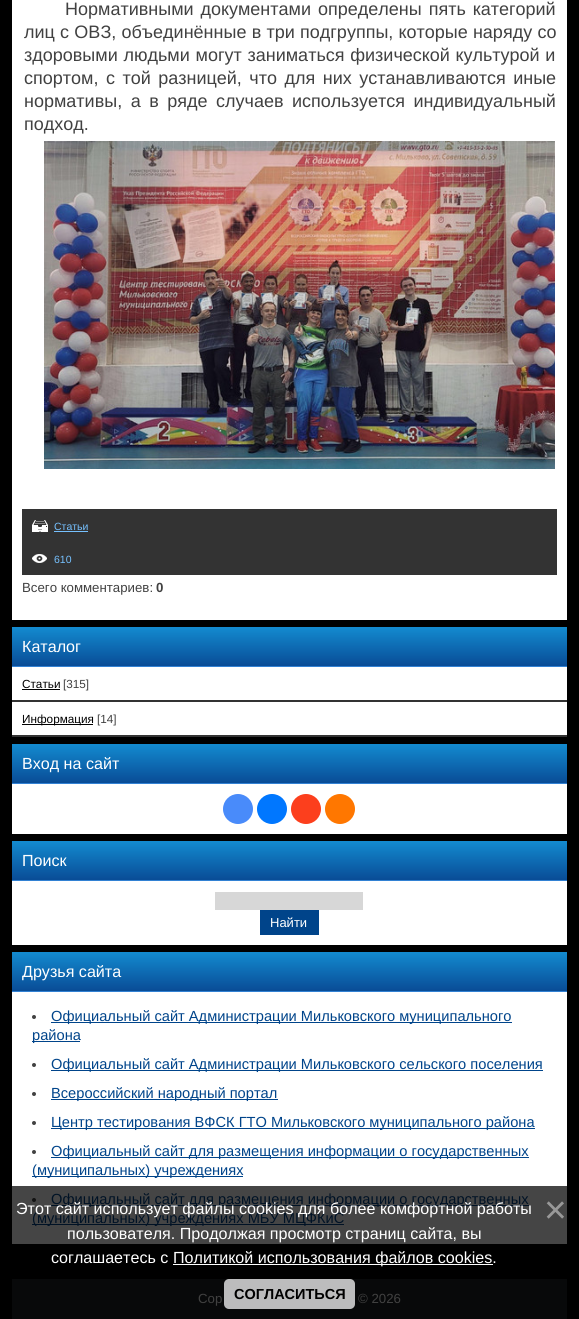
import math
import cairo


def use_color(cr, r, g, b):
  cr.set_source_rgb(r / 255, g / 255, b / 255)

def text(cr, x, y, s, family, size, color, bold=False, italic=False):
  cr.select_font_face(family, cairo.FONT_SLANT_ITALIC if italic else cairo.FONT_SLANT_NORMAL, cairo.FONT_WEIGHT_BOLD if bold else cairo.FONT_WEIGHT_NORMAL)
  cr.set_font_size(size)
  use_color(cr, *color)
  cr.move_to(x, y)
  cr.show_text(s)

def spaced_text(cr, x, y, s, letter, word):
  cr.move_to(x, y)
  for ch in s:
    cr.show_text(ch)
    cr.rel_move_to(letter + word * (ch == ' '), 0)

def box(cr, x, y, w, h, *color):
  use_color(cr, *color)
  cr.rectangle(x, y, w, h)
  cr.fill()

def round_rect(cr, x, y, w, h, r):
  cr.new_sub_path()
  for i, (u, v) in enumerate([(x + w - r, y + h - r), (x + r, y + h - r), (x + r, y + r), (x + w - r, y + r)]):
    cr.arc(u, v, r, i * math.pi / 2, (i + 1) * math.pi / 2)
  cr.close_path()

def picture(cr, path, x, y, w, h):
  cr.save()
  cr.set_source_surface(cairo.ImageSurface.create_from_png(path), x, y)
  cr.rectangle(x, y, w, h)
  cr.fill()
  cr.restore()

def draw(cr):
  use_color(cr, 0, 0, 0)
  cr.paint()
  box(cr, 12, 0, 555, 620, 255, 255, 255)
  picture(cr, "img_01.png", 44, 141, 511, 328)
  box(cr, 22, 509, 535, 66, 51, 51, 51)
  picture(cr, "img_02.png", 32, 520, 16, 12)
  box(cr, 54, 531, 34, 1, 118, 193, 255)
  picture(cr, "img_03.png", 32, 554, 15, 9)
  gradient = cairo.LinearGradient(290, 627, 290, 666)
  gradient.add_color_stop_rgba(0, 0.075, 0.545, 0.816, 1)
  gradient.add_color_stop_rgba(1, 0.035, 0.298, 0.588, 1)
  cr.set_source(gradient)
  cr.rectangle(12, 627, 555, 39)
  cr.fill()
  box(cr, 12, 666, 555, 1, 50, 129, 211)
  box(cr, 12, 667, 555, 68, 255, 255, 255)
  box(cr, 12, 700, 555, 2, 51, 51, 51)
  box(cr, 22, 689, 38, 1, 0, 0, 0)
  box(cr, 12, 735, 555, 2, 51, 51, 51)
  box(cr, 22, 724, 71, 1, 0, 0, 0)
  gradient = cairo.LinearGradient(290, 744, 290, 783)
  gradient.add_color_stop_rgba(0, 0.075, 0.545, 0.816, 1)
  gradient.add_color_stop_rgba(1, 0.035, 0.298, 0.588, 1)
  cr.set_source(gradient)
  cr.rectangle(12, 744, 555, 39)
  cr.fill()
  box(cr, 12, 783, 555, 1, 50, 129, 211)
  box(cr, 12, 784, 555, 50, 255, 255, 255)
  use_color(cr, 73, 139, 250)
  cr.arc(238, 809, 15, 0, 2 * math.pi)
  cr.fill()
  use_color(cr, 0, 119, 255)
  cr.arc(272, 809, 15, 0, 2 * math.pi)
  cr.fill()
  use_color(cr, 252, 63, 29)
  cr.arc(306, 809, 15, 0, 2 * math.pi)
  cr.fill()
  use_color(cr, 255, 119, 0)
  cr.arc(340, 809, 15, 0, 2 * math.pi)
  cr.fill()
  gradient = cairo.LinearGradient(290, 841, 290, 880)
  gradient.add_color_stop_rgba(0, 0.075, 0.545, 0.816, 1)
  gradient.add_color_stop_rgba(1, 0.035, 0.298, 0.588, 1)
  cr.set_source(gradient)
  cr.rectangle(12, 841, 555, 39)
  cr.fill()
  box(cr, 12, 880, 555, 1, 50, 129, 211)
  box(cr, 12, 881, 555, 64, 255, 255, 255)
  box(cr, 215, 892, 148, 18, 215, 215, 215)
  box(cr, 260, 910, 59, 25, 0, 68, 138)
  gradient = cairo.LinearGradient(290, 952, 290, 991)
  gradient.add_color_stop_rgba(0, 0.075, 0.545, 0.816, 1)
  gradient.add_color_stop_rgba(1, 0.035, 0.298, 0.588, 1)
  cr.set_source(gradient)
  cr.rectangle(12, 952, 555, 39)
  cr.fill()
  box(cr, 12, 991, 555, 1, 50, 129, 211)
  box(cr, 12, 992, 555, 194, 255, 255, 255)
  box(cr, 12, 1186, 555, 58, 69, 69, 69)
  use_color(cr, 65, 65, 65)
  cr.arc(34, 1017, 2, 0, 2 * math.pi)
  cr.fill()
  box(cr, 51, 1022, 461, 1, 0, 68, 138)
  box(cr, 32, 1041, 48, 1, 0, 68, 138)
  use_color(cr, 65, 65, 65)
  cr.arc(34, 1065, 2, 0, 2 * math.pi)
  cr.fill()
  box(cr, 51, 1070, 492, 1, 0, 68, 138)
  use_color(cr, 65, 65, 65)
  cr.arc(34, 1094, 2, 0, 2 * math.pi)
  cr.fill()
  box(cr, 51, 1099, 227, 1, 0, 68, 138)
  use_color(cr, 65, 65, 65)
  cr.arc(34, 1123, 2, 0, 2 * math.pi)
  cr.fill()
  box(cr, 51, 1128, 484, 1, 0, 68, 138)
  use_color(cr, 65, 65, 65)
  cr.arc(34, 1152, 2, 0, 2 * math.pi)
  cr.fill()
  box(cr, 51, 1157, 478, 1, 0, 68, 138)
  box(cr, 32, 1176, 211, 1, 0, 68, 138)
  use_color(cr, 18, 18, 18)
  cr.arc(34, 1200, 2, 0, 2 * math.pi)
  cr.fill()
  box(cr, 51, 1205, 478, 1, 0, 18, 37)
  box(cr, 32, 1224, 312, 1, 0, 18, 37)
  box(cr, 12, 1279, 555, 40, 8, 9, 10)
  cr.set_source_rgba(1, 1, 1, 0.73)
  round_rect(cr, 224, 1279, 131, 30, 5)
  cr.fill()
  box(cr, 173, 1264, 320, 1, 255, 255, 255)
  cr.select_font_face("Liberation Sans")
  cr.set_font_size(18)
  use_color(cr, 65, 65, 65)
  spaced_text(cr, 65, 15, "Нормативными документами определены пять категорий", 0, 2)
  spaced_text(cr, 24, 38, "лиц с ОВЗ, объединённые в три подгруппы, которые наряду со", 0, 0.25)
  spaced_text(cr, 24, 61, "здоровыми людьми могут заниматься физической культурой и", 0, 0.75)
  spaced_text(cr, 24, 84, "спортом, с той разницей, что для них устанавливаются иные", 0, 2.5)
  spaced_text(cr, 24, 107, "нормативы, а в ряде случаев используется индивидуальный", 0, 3.5)
  text(cr, 24, 130, "подход.", "Liberation Sans", 18, (65, 65, 65))
  text(cr, 54, 530, "Статьи", "Liberation Sans", 10.5, (118, 193, 255))
  text(cr, 54, 563, "610", "Liberation Sans", 10.5, (118, 193, 255))
  text(cr, 22, 592, "Всего комментариев:", "Liberation Sans", 13.25, (65, 65, 65))
  text(cr, 156, 592, "0", "Liberation Sans", 13.25, (65, 65, 65), bold=True)
  text(cr, 22, 652, "Каталог", "Liberation Sans", 16.1, (255, 255, 255))
  text(cr, 22, 688, "Статьи", "Liberation Sans", 11.75, (0, 0, 0))
  text(cr, 63, 688, "[315]", "Liberation Sans", 11.75, (65, 65, 65))
  text(cr, 22, 723, "Информация", "Liberation Sans", 11.75, (0, 0, 0))
  text(cr, 97, 723, "[14]", "Liberation Sans", 11.75, (65, 65, 65))
  text(cr, 22, 769, "Вход на сайт", "Liberation Sans", 16.1, (255, 255, 255))
  text(cr, 22, 866, "Поиск", "Liberation Sans", 16.1, (255, 255, 255))
  text(cr, 270, 927, "Найти", "Liberation Sans", 13, (255, 255, 255))
  text(cr, 22, 977, "Друзья сайта", "Liberation Sans", 16.1, (255, 255, 255))
  text(cr, 51, 1021, "Официальный сайт Администрации Мильковского муниципального", "Liberation Sans", 14.65, (0, 68, 138))
  text(cr, 32, 1040, "района", "Liberation Sans", 14.65, (0, 68, 138))
  text(cr, 51, 1069, "Официальный сайт Администрации Мильковского сельского поселения", "Liberation Sans", 14.65, (0, 68, 138))
  text(cr, 51, 1098, "Всероссийский народный портал", "Liberation Sans", 14.65, (0, 68, 138))
  text(cr, 51, 1127, "Центр тестирования ВФСК ГТО Мильковского муниципального района", "Liberation Sans", 14.65, (0, 68, 138))
  text(cr, 51, 1156, "Официальный сайт для размещения информации о государственных", "Liberation Sans", 14.65, (0, 68, 138))
  text(cr, 32, 1175, "(муниципальных) учреждениях", "Liberation Sans", 14.65, (0, 68, 138))
  text(cr, 51, 1204, "Официальный сайт для размещения информации о государственных", "Liberation Sans", 14.65, (0, 18, 37))
  text(cr, 32, 1223, "(муниципальных) учреждениях МБУ МЦФКиС", "Liberation Sans", 14.65, (0, 18, 37))
  text(cr, 198, 1303, "Cop", "Liberation Sans", 13.25, (65, 65, 65))
  text(cr, 358, 1303, "© 2026", "Liberation Sans", 13.25, (65, 65, 65))
  text(cr, 544, 1223, "×", "Liberation Sans", 39, (153, 153, 153))
  text(cr, 234, 1299, "СОГЛАСИТЬСЯ", "Liberation Sans", 14.5, (0, 0, 0), bold=True)
  text(cr, 16, 1214, "Этот сайт использует файлы cookies для более комфортной работы", "Liberation Sans", 16.1, (255, 255, 255))
  text(cr, 67, 1239, "пользователя. Продолжая просмотр страниц сайта, вы", "Liberation Sans", 16.1, (255, 255, 255))
  text(cr, 51, 1263, "соглашаетесь с", "Liberation Sans", 16.1, (255, 255, 255))
  text(cr, 173, 1263, "Политикой использования файлов cookies.", "Liberation Sans", 16.1, (255, 255, 255))


surface = cairo.ImageSurface(cairo.FORMAT_RGB24, 579, 1319)
cr = cairo.Context(surface)
options = cairo.FontOptions()
options.set_hint_metrics(cairo.HINT_METRICS_OFF)
options.set_hint_style(cairo.HINT_STYLE_NONE)
cr.set_font_options(options)
cr.set_miter_limit(4)
draw(cr)
surface.write_to_png("out.png")
